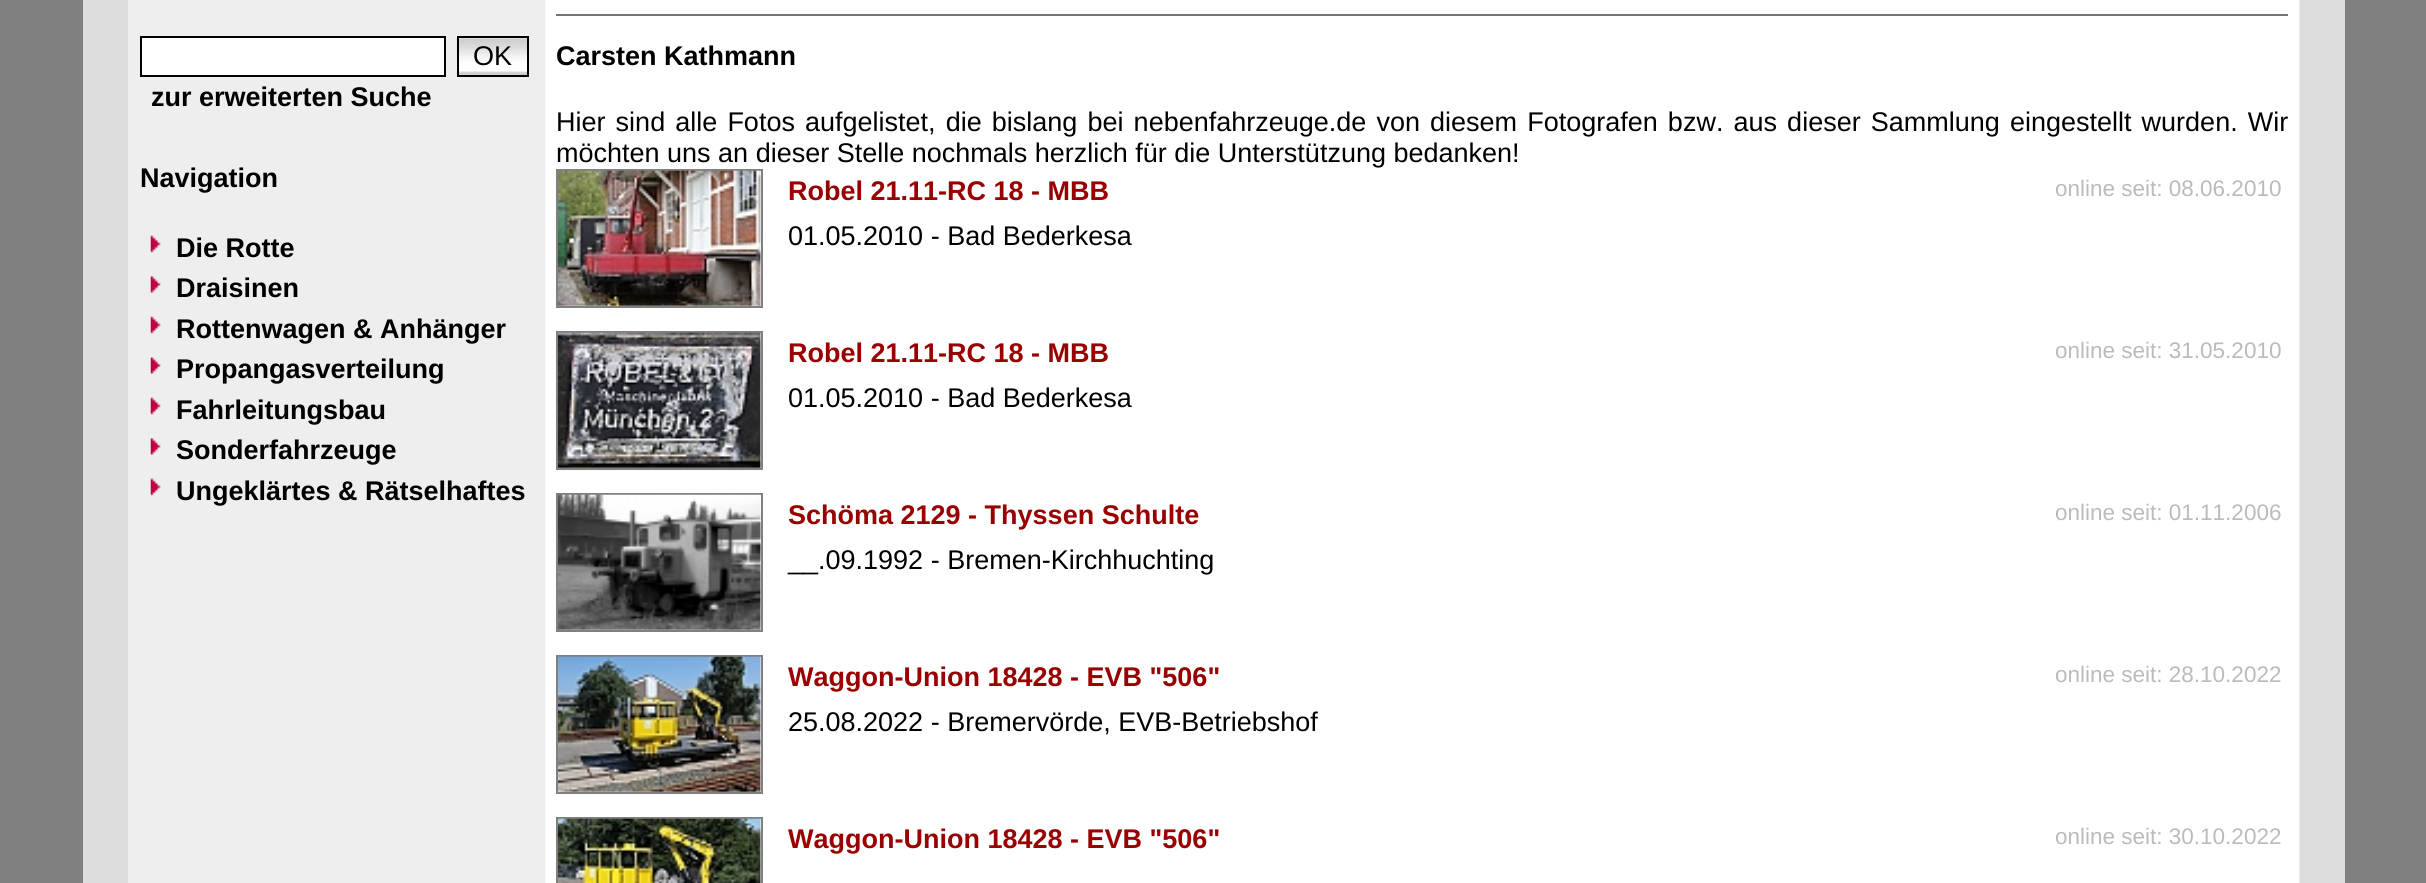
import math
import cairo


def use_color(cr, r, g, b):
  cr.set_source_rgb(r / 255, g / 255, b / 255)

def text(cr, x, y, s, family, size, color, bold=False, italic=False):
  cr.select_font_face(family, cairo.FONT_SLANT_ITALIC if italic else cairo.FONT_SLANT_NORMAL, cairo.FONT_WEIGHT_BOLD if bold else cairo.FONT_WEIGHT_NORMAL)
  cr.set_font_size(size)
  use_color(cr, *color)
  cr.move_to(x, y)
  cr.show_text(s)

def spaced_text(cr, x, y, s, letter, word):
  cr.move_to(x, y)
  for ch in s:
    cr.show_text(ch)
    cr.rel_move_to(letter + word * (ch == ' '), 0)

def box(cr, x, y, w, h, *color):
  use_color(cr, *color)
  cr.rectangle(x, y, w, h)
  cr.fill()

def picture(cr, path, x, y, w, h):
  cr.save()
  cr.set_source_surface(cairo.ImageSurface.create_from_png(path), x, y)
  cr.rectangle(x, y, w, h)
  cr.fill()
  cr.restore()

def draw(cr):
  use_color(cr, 128, 128, 128)
  cr.paint()
  picture(cr, "img_01.png", 545, 0, 1755, 883)
  box(cr, 83, 0, 45, 883, 221, 221, 221)
  box(cr, 128, 0, 417, 883, 238, 238, 238)
  use_color(cr, 255, 255, 255)
  cr.rectangle(141, 37, 304, 39)
  cr.fill_preserve()
  use_color(cr, 0, 0, 0)
  cr.stroke()
  picture(cr, "img_02.png", 456, 35, 73, 41)
  cr.rectangle(458, 37, 70, 39)
  cr.stroke()
  picture(cr, "img_03.png", 150, 235, 11, 18)
  picture(cr, "img_04.png", 150, 276, 11, 17)
  picture(cr, "img_03.png", 150, 316, 11, 18)
  picture(cr, "img_05.png", 150, 357, 11, 17)
  picture(cr, "img_03.png", 150, 397, 11, 18)
  picture(cr, "img_04.png", 150, 438, 11, 17)
  picture(cr, "img_03.png", 150, 478, 11, 18)
  box(cr, 556, 14, 1732, 2, 119, 119, 119)
  cr.rectangle(557, 170, 205, 137)
  use_color(cr, 128, 128, 128)
  cr.stroke()
  picture(cr, "img_06.png", 558, 170, 203, 136)
  cr.rectangle(557, 332, 205, 137)
  cr.stroke()
  picture(cr, "img_07.png", 558, 332, 203, 136)
  cr.rectangle(557, 494, 205, 137)
  cr.stroke()
  picture(cr, "img_08.png", 558, 494, 203, 136)
  cr.rectangle(557, 656, 205, 137)
  cr.stroke()
  picture(cr, "img_09.png", 558, 656, 203, 136)
  cr.rectangle(557, 818, 205, 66)
  cr.stroke()
  picture(cr, "img_10.png", 558, 818, 203, 65)
  box(cr, 2300, 0, 45, 883, 221, 221, 221)
  text(cr, 473, 65, "OK", "Liberation Sans", 27, (0, 0, 0))
  text(cr, 151, 106, "zur erweiterten Suche", "Liberation Sans", 27, (0, 0, 0), bold=True)
  text(cr, 140, 187, "Navigation", "Liberation Sans", 27, (0, 0, 0), bold=True)
  text(cr, 176, 257, "Die Rotte", "Liberation Sans", 27, (0, 0, 0), bold=True)
  text(cr, 176, 297, "Draisinen", "Liberation Sans", 27, (0, 0, 0), bold=True)
  text(cr, 176, 338, "Rottenwagen & Anhänger", "Liberation Sans", 27, (0, 0, 0), bold=True)
  text(cr, 176, 378, "Propangasverteilung", "Liberation Sans", 27, (0, 0, 0), bold=True)
  text(cr, 176, 419, "Fahrleitungsbau", "Liberation Sans", 27, (0, 0, 0), bold=True)
  text(cr, 176, 459, "Sonderfahrzeuge", "Liberation Sans", 27, (0, 0, 0), bold=True)
  text(cr, 176, 500, "Ungeklärtes & Rätselhaftes", "Liberation Sans", 27, (0, 0, 0), bold=True)
  text(cr, 556, 65, "Carsten Kathmann", "Liberation Sans", 27, (0, 0, 0), bold=True)
  cr.select_font_face("Liberation Sans")
  spaced_text(cr, 556, 131, "Hier sind alle Fotos aufgelistet, die bislang bei nebenfahrzeuge.de von diesem Fotografen bzw. aus dieser Sammlung eingestellt wurden. Wir", 0, 2.6)
  text(cr, 556, 162, "möchten uns an dieser Stelle nochmals herzlich für die Unterstützung bedanken!", "Liberation Sans", 27, (0, 0, 0))
  text(cr, 788, 200, "Robel 21.11-RC 18 - MBB", "Liberation Sans", 27, (153, 0, 0), bold=True)
  text(cr, 2055, 196, "online seit: 08.06.2010", "Liberation Sans", 22.5, (187, 187, 187))
  text(cr, 788, 245, "01.05.2010 - Bad Bederkesa", "Liberation Sans", 27, (0, 0, 0))
  text(cr, 788, 362, "Robel 21.11-RC 18 - MBB", "Liberation Sans", 27, (153, 0, 0), bold=True)
  text(cr, 2055, 358, "online seit: 31.05.2010", "Liberation Sans", 22.5, (187, 187, 187))
  text(cr, 788, 407, "01.05.2010 - Bad Bederkesa", "Liberation Sans", 27, (0, 0, 0))
  text(cr, 788, 524, "Schöma 2129 - Thyssen Schulte", "Liberation Sans", 27, (153, 0, 0), bold=True)
  text(cr, 2055, 520, "online seit: 01.11.2006", "Liberation Sans", 22.5, (187, 187, 187))
  text(cr, 788, 569, "__.09.1992 - Bremen-Kirchhuchting", "Liberation Sans", 27, (0, 0, 0))
  text(cr, 788, 686, "Waggon-Union 18428 - EVB \"506\"", "Liberation Sans", 27, (153, 0, 0), bold=True)
  text(cr, 2055, 682, "online seit: 28.10.2022", "Liberation Sans", 22.5, (187, 187, 187))
  text(cr, 788, 731, "25.08.2022 - Bremervörde, EVB-Betriebshof", "Liberation Sans", 27, (0, 0, 0))
  text(cr, 788, 848, "Waggon-Union 18428 - EVB \"506\"", "Liberation Sans", 27, (153, 0, 0), bold=True)
  text(cr, 2055, 844, "online seit: 30.10.2022", "Liberation Sans", 22.5, (187, 187, 187))


surface = cairo.ImageSurface(cairo.FORMAT_RGB24, 2426, 883)
cr = cairo.Context(surface)
options = cairo.FontOptions()
options.set_hint_metrics(cairo.HINT_METRICS_OFF)
options.set_hint_style(cairo.HINT_STYLE_NONE)
cr.set_font_options(options)
cr.set_miter_limit(4)
draw(cr)
surface.write_to_png("out.png")
